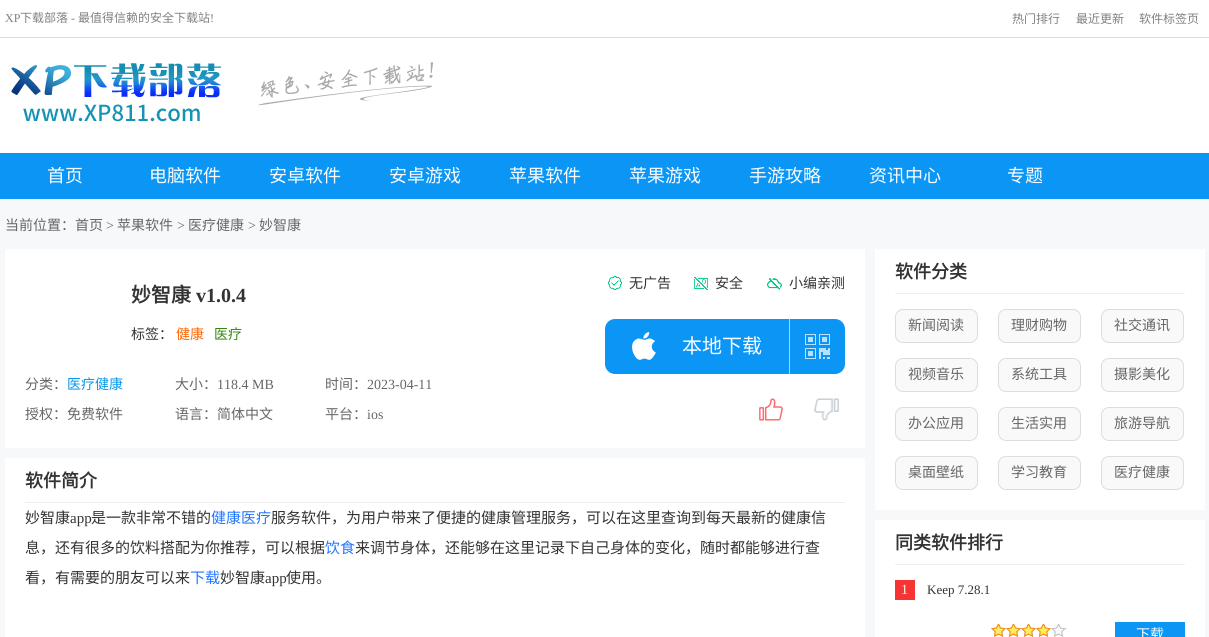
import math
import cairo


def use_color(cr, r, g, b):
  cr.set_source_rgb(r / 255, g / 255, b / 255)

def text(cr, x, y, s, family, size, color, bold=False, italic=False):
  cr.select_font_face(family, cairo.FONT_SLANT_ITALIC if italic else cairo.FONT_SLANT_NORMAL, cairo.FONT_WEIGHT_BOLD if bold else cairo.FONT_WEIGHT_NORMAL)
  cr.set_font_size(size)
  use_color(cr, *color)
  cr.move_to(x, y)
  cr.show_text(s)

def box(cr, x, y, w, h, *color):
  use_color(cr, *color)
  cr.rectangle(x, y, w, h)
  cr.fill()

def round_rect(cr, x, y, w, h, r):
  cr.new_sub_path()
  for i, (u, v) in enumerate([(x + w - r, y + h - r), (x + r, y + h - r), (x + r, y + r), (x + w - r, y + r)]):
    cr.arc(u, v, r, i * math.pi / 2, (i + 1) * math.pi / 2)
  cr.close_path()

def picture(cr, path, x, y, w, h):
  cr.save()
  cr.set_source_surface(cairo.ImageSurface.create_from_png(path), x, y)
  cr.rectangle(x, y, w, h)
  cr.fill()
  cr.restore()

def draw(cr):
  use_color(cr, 247, 248, 250)
  cr.paint()
  box(cr, 0, 0, 1209, 153, 255, 255, 255)
  box(cr, 0, 37, 1209, 1, 221, 222, 225)
  picture(cr, "img_01.png", 11, 63, 211, 59)
  picture(cr, "img_02.png", 258, 62, 175, 44)
  box(cr, 0, 153, 1209, 46, 11, 150, 245)
  box(cr, 5, 249, 860, 199, 255, 255, 255)
  picture(cr, "img_03.png", 608, 276, 14, 14)
  picture(cr, "img_04.png", 694, 277, 14, 13)
  picture(cr, "img_05.png", 767, 278, 15, 12)
  use_color(cr, 11, 150, 245)
  round_rect(cr, 605, 319, 240, 55, 10)
  cr.fill()
  picture(cr, "img_06.png", 632, 332, 24, 28)
  box(cr, 789, 319, 1, 55, 180, 211, 239)
  picture(cr, "img_07.png", 805, 334, 25, 25)
  picture(cr, "img_08.png", 759, 398, 24, 23)
  picture(cr, "img_09.png", 814, 398, 25, 23)
  box(cr, 5, 458, 860, 179, 255, 255, 255)
  box(cr, 25, 502, 820, 1, 239, 239, 239)
  box(cr, 875, 249, 330, 261, 255, 255, 255)
  box(cr, 895, 293, 290, 1, 239, 239, 239)
  use_color(cr, 249, 249, 249)
  round_rect(cr, 895.5, 309.5, 82, 33, 7.5)
  cr.fill_preserve()
  use_color(cr, 221, 221, 221)
  cr.set_line_width(1)
  cr.stroke()
  use_color(cr, 249, 249, 249)
  round_rect(cr, 998.5, 309.5, 82, 33, 7.5)
  cr.fill_preserve()
  use_color(cr, 221, 221, 221)
  cr.stroke()
  use_color(cr, 249, 249, 249)
  round_rect(cr, 1101.5, 309.5, 82, 33, 7.5)
  cr.fill_preserve()
  use_color(cr, 221, 221, 221)
  cr.stroke()
  use_color(cr, 249, 249, 249)
  round_rect(cr, 895.5, 358.5, 82, 33, 7.5)
  cr.fill_preserve()
  use_color(cr, 221, 221, 221)
  cr.stroke()
  use_color(cr, 249, 249, 249)
  round_rect(cr, 998.5, 358.5, 82, 33, 7.5)
  cr.fill_preserve()
  use_color(cr, 221, 221, 221)
  cr.stroke()
  use_color(cr, 249, 249, 249)
  round_rect(cr, 1101.5, 358.5, 82, 33, 7.5)
  cr.fill_preserve()
  use_color(cr, 221, 221, 221)
  cr.stroke()
  use_color(cr, 249, 249, 249)
  round_rect(cr, 895.5, 407.5, 82, 33, 7.5)
  cr.fill_preserve()
  use_color(cr, 221, 221, 221)
  cr.stroke()
  use_color(cr, 249, 249, 249)
  round_rect(cr, 998.5, 407.5, 82, 33, 7.5)
  cr.fill_preserve()
  use_color(cr, 221, 221, 221)
  cr.stroke()
  use_color(cr, 249, 249, 249)
  round_rect(cr, 1101.5, 407.5, 82, 33, 7.5)
  cr.fill_preserve()
  use_color(cr, 221, 221, 221)
  cr.stroke()
  use_color(cr, 249, 249, 249)
  round_rect(cr, 895.5, 456.5, 82, 33, 7.5)
  cr.fill_preserve()
  use_color(cr, 221, 221, 221)
  cr.stroke()
  use_color(cr, 249, 249, 249)
  round_rect(cr, 998.5, 456.5, 82, 33, 7.5)
  cr.fill_preserve()
  use_color(cr, 221, 221, 221)
  cr.stroke()
  use_color(cr, 249, 249, 249)
  round_rect(cr, 1101.5, 456.5, 82, 33, 7.5)
  cr.fill_preserve()
  use_color(cr, 221, 221, 221)
  cr.stroke()
  box(cr, 875, 520, 330, 117, 255, 255, 255)
  box(cr, 895, 564, 290, 1, 239, 239, 239)
  box(cr, 895, 580, 20, 20, 247, 51, 51)
  picture(cr, "img_10.png", 991, 624, 76, 13)
  picture(cr, "img_11.png", 991, 624, 60, 13)
  box(cr, 1115, 622, 70, 15, 11, 150, 245)
  text(cr, 5, 22, "XP", "Liberation Serif", 12, (128, 128, 128))
  text(cr, 20, 22, "下载部落", "Noto Sans CJK SC", 12, (128, 128, 128))
  text(cr, 71, 22, "-", "Liberation Serif", 12, (128, 128, 128))
  text(cr, 78, 22, "最值得信赖的安全下载站", "Noto Sans CJK SC", 12, (128, 128, 128))
  text(cr, 210, 22, "!", "Liberation Serif", 12, (128, 128, 128))
  text(cr, 1012, 23, "热门排行", "Noto Sans CJK SC", 12, (128, 128, 128))
  text(cr, 1076, 23, "最近更新", "Noto Sans CJK SC", 12, (128, 128, 128))
  text(cr, 1139, 23, "软件标签页", "Noto Sans CJK SC", 12, (128, 128, 128))
  text(cr, 47, 182, "首页", "Noto Sans CJK SC", 18, (250, 252, 255))
  text(cr, 149, 182, "电脑软件", "Noto Sans CJK SC", 18, (250, 252, 255))
  text(cr, 269, 182, "安卓软件", "Noto Sans CJK SC", 18, (250, 252, 255))
  text(cr, 389, 182, "安卓游戏", "Noto Sans CJK SC", 18, (250, 252, 255))
  text(cr, 509, 182, "苹果软件", "Noto Sans CJK SC", 18, (250, 252, 255))
  text(cr, 629, 182, "苹果游戏", "Noto Sans CJK SC", 18, (250, 252, 255))
  text(cr, 749, 182, "手游攻略", "Noto Sans CJK SC", 18, (250, 252, 255))
  text(cr, 869, 182, "资讯中心", "Noto Sans CJK SC", 18, (250, 252, 255))
  text(cr, 1007, 182, "专题", "Noto Sans CJK SC", 18, (250, 252, 255))
  text(cr, 5, 230, "当前位置：首页", "Noto Sans CJK SC", 14, (102, 102, 102))
  text(cr, 106, 230, ">", "Liberation Serif", 14, (102, 102, 102))
  text(cr, 117, 230, "苹果软件", "Noto Sans CJK SC", 14, (102, 102, 102))
  text(cr, 177, 230, ">", "Liberation Serif", 14, (102, 102, 102))
  text(cr, 188, 230, "医疗健康", "Noto Sans CJK SC", 14, (102, 102, 102))
  text(cr, 248, 230, ">", "Liberation Serif", 14, (102, 102, 102))
  text(cr, 259, 230, "妙智康", "Noto Sans CJK SC", 14, (102, 102, 102))
  text(cr, 131, 302, "妙智康", "Noto Sans CJK SC", 20, (51, 51, 51), bold=True)
  text(cr, 196, 302, "v1.0.4", "Liberation Serif", 20, (51, 51, 51), bold=True)
  text(cr, 131, 339, "标签：", "Noto Sans CJK SC", 14, (51, 51, 51))
  text(cr, 176, 339, "健康", "Noto Sans CJK SC", 14, (255, 102, 0))
  text(cr, 214, 339, "医疗", "Noto Sans CJK SC", 14, (50, 136, 8))
  text(cr, 25, 389, "分类：", "Noto Sans CJK SC", 14, (102, 102, 102))
  text(cr, 67, 389, "医疗健康", "Noto Sans CJK SC", 14, (7, 151, 235))
  text(cr, 175, 389, "大小：", "Noto Sans CJK SC", 14, (102, 102, 102))
  text(cr, 217, 389, "118.4 MB", "Liberation Serif", 14, (102, 102, 102))
  text(cr, 325, 389, "时间：", "Noto Sans CJK SC", 14, (102, 102, 102))
  text(cr, 367, 389, "2023-04-11", "Liberation Serif", 14, (102, 102, 102))
  text(cr, 25, 419, "授权：免费软件", "Noto Sans CJK SC", 14, (102, 102, 102))
  text(cr, 175, 419, "语言：简体中文", "Noto Sans CJK SC", 14, (102, 102, 102))
  text(cr, 325, 419, "平台：", "Noto Sans CJK SC", 14, (102, 102, 102))
  text(cr, 367, 419, "ios", "Liberation Serif", 14, (102, 102, 102))
  text(cr, 629, 288, "无广告", "Noto Sans CJK SC", 14, (51, 51, 51))
  text(cr, 715, 288, "安全", "Noto Sans CJK SC", 14, (51, 51, 51))
  text(cr, 789, 288, "小编亲测", "Noto Sans CJK SC", 14, (51, 51, 51))
  text(cr, 682, 353, "本地下载", "Noto Sans CJK SC", 20, (250, 252, 255))
  text(cr, 25, 487, "软件简介", "Noto Sans CJK SC", 18, (51, 51, 51), bold=True)
  text(cr, 25, 523, "妙智康", "Noto Sans CJK SC", 15, (51, 51, 51))
  text(cr, 70, 523, "app", "Liberation Serif", 15, (51, 51, 51))
  text(cr, 91, 523, "是一款非常不错的", "Noto Sans CJK SC", 15, (51, 51, 51))
  text(cr, 211, 523, "健康医疗", "Noto Sans CJK SC", 15, (33, 118, 255))
  text(cr, 271, 523, "服务软件，为用户带来了便捷的健康管理服务，可以在这里查询到每天最新的健康信", "Noto Sans CJK SC", 15, (51, 51, 51))
  text(cr, 25, 553, "息，还有很多的饮料搭配为你推荐，可以根据", "Noto Sans CJK SC", 15, (51, 51, 51))
  text(cr, 325, 553, "饮食", "Noto Sans CJK SC", 15, (33, 118, 255))
  text(cr, 355, 553, "来调节身体，还能够在这里记录下自己身体的变化，随时都能够进行查", "Noto Sans CJK SC", 15, (51, 51, 51))
  text(cr, 25, 583, "看，有需要的朋友可以来", "Noto Sans CJK SC", 15, (51, 51, 51))
  text(cr, 190, 583, "下载", "Noto Sans CJK SC", 15, (33, 118, 255))
  text(cr, 220, 583, "妙智康", "Noto Sans CJK SC", 15, (51, 51, 51))
  text(cr, 265, 583, "app", "Liberation Serif", 15, (51, 51, 51))
  text(cr, 286, 583, "使用。", "Noto Sans CJK SC", 15, (51, 51, 51))
  text(cr, 895, 278, "软件分类", "Noto Sans CJK SC", 18, (51, 51, 51), bold=True)
  text(cr, 908, 330, "新闻阅读", "Noto Sans CJK SC", 14, (102, 102, 102))
  text(cr, 1011, 330, "理财购物", "Noto Sans CJK SC", 14, (102, 102, 102))
  text(cr, 1114, 330, "社交通讯", "Noto Sans CJK SC", 14, (102, 102, 102))
  text(cr, 908, 379, "视频音乐", "Noto Sans CJK SC", 14, (102, 102, 102))
  text(cr, 1011, 379, "系统工具", "Noto Sans CJK SC", 14, (102, 102, 102))
  text(cr, 1114, 379, "摄影美化", "Noto Sans CJK SC", 14, (102, 102, 102))
  text(cr, 908, 428, "办公应用", "Noto Sans CJK SC", 14, (102, 102, 102))
  text(cr, 1011, 428, "生活实用", "Noto Sans CJK SC", 14, (102, 102, 102))
  text(cr, 1114, 428, "旅游导航", "Noto Sans CJK SC", 14, (102, 102, 102))
  text(cr, 908, 477, "桌面壁纸", "Noto Sans CJK SC", 14, (102, 102, 102))
  text(cr, 1011, 477, "学习教育", "Noto Sans CJK SC", 14, (102, 102, 102))
  text(cr, 1114, 477, "医疗健康", "Noto Sans CJK SC", 14, (102, 102, 102))
  text(cr, 895, 549, "同类软件排行", "Noto Sans CJK SC", 18, (51, 51, 51), bold=True)
  text(cr, 901, 594, "1", "Liberation Serif", 14, (250, 252, 255))
  text(cr, 927, 594, "Keep 7.28.1", "Liberation Serif", 13, (51, 51, 51))
  text(cr, 1136, 639, "下载", "Noto Sans CJK SC", 14, (250, 252, 255))


surface = cairo.ImageSurface(cairo.FORMAT_RGB24, 1209, 637)
cr = cairo.Context(surface)
options = cairo.FontOptions()
options.set_hint_metrics(cairo.HINT_METRICS_OFF)
options.set_hint_style(cairo.HINT_STYLE_NONE)
cr.set_font_options(options)
cr.set_miter_limit(4)
draw(cr)
surface.write_to_png("out.png")
